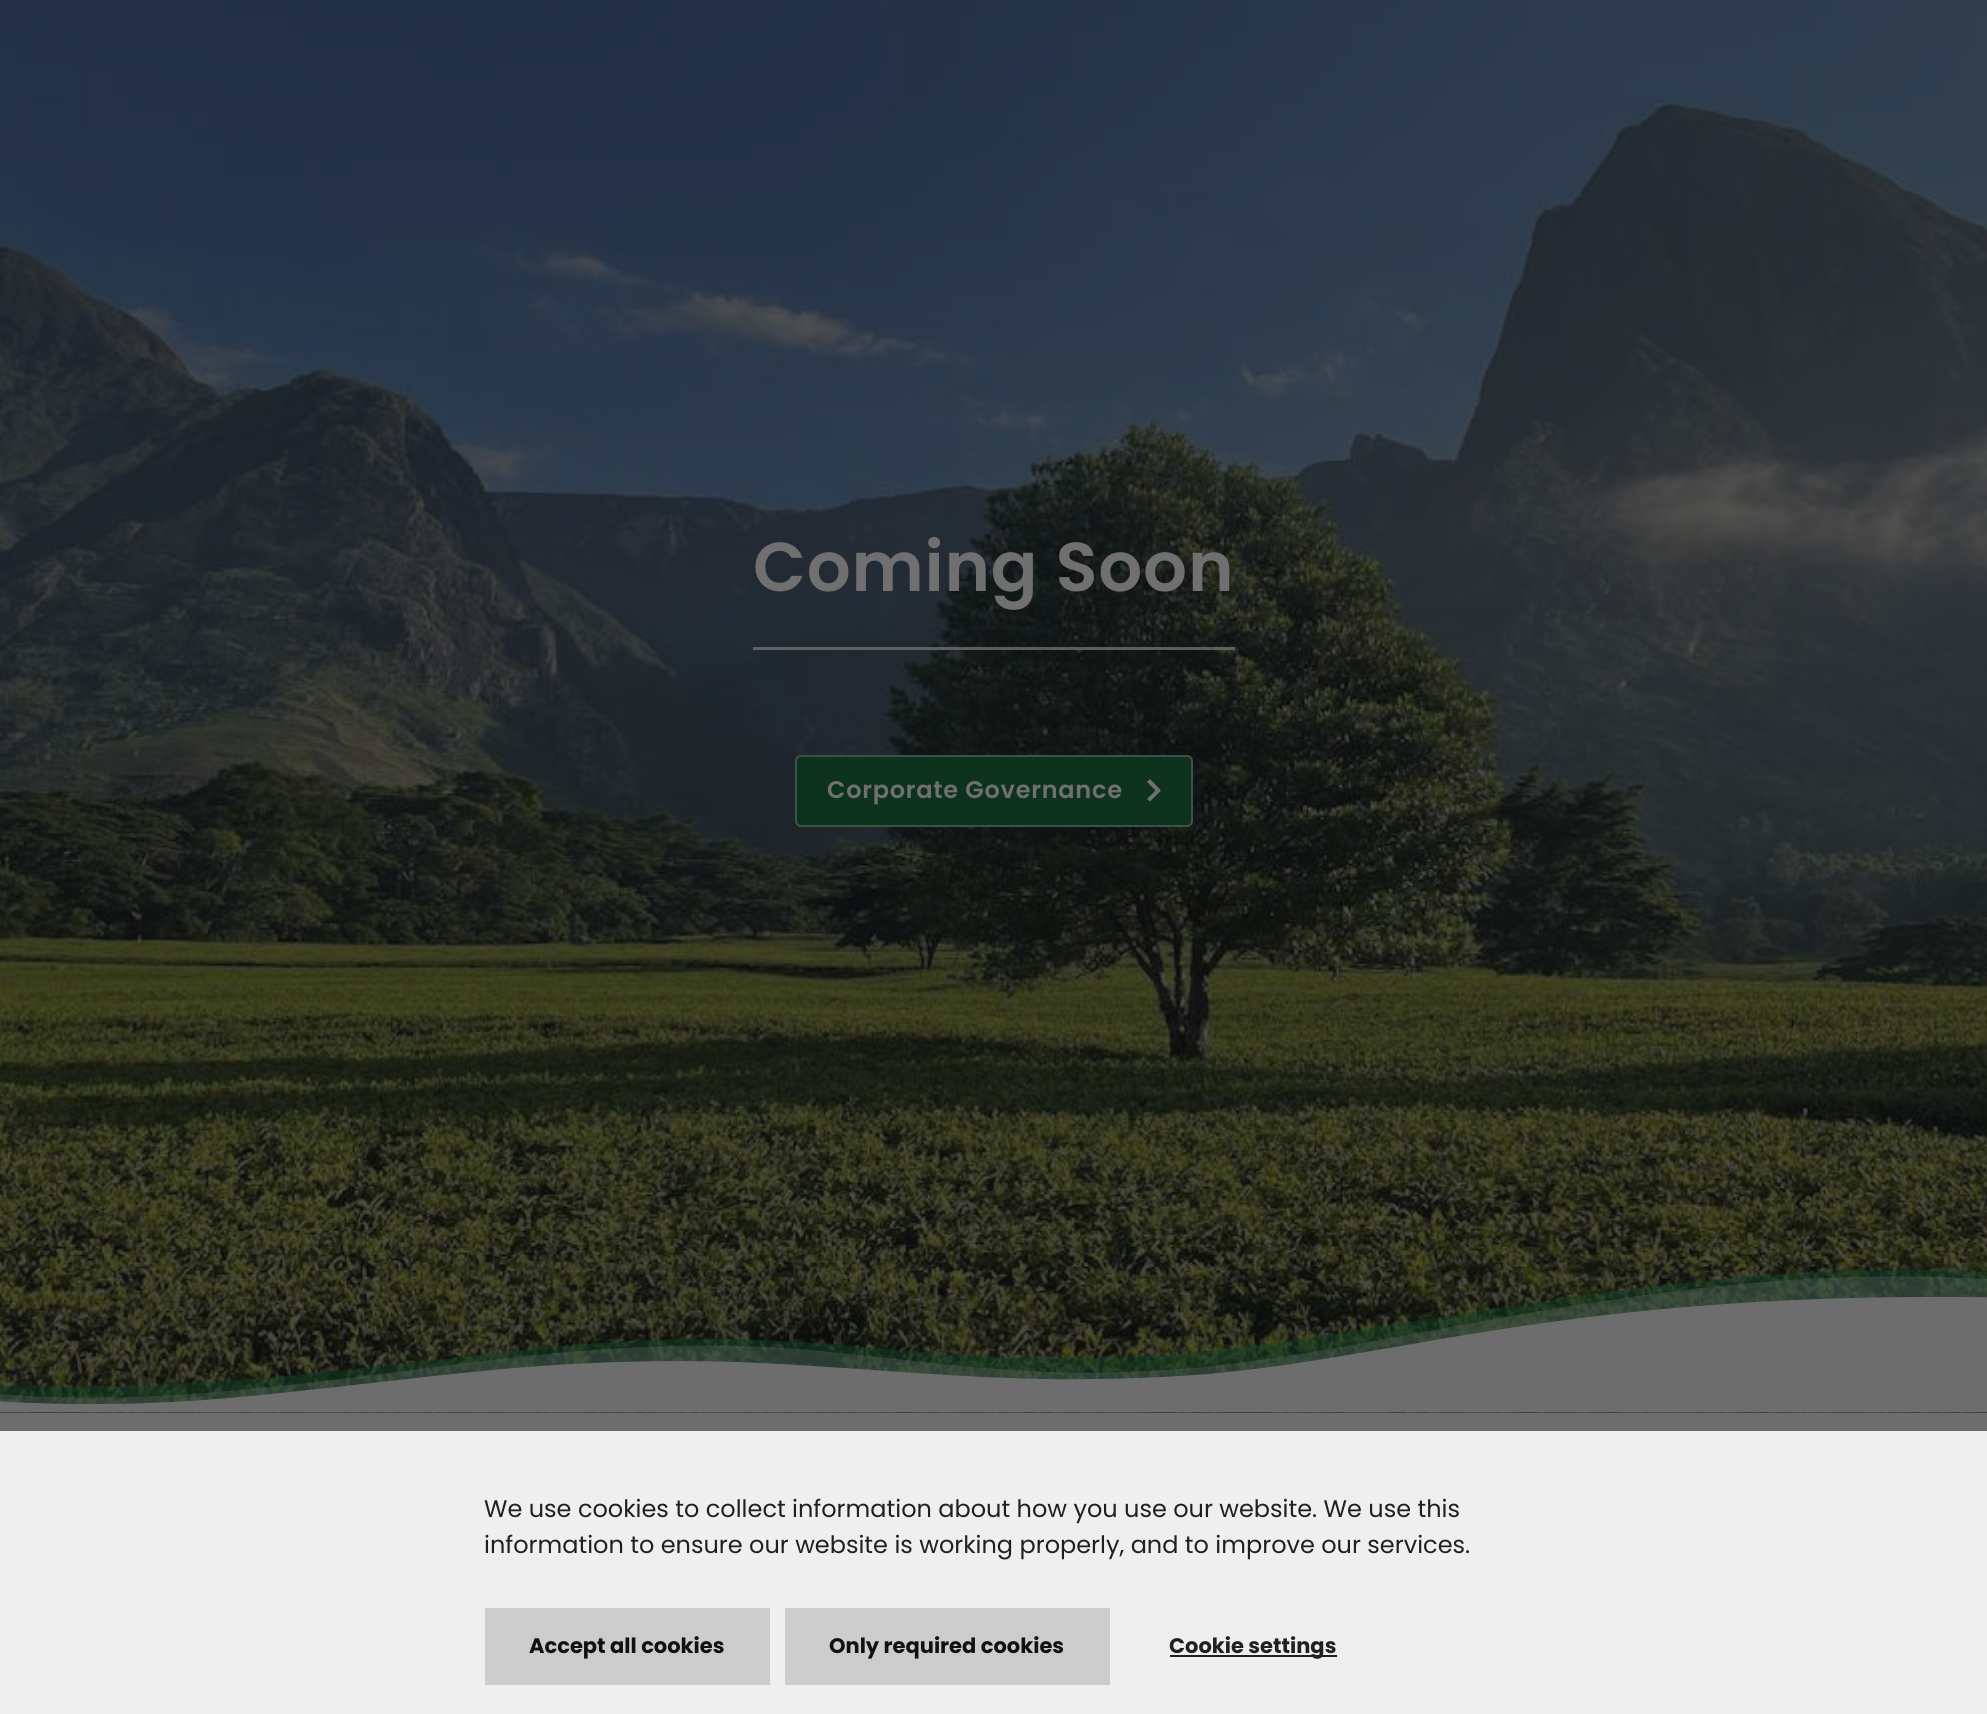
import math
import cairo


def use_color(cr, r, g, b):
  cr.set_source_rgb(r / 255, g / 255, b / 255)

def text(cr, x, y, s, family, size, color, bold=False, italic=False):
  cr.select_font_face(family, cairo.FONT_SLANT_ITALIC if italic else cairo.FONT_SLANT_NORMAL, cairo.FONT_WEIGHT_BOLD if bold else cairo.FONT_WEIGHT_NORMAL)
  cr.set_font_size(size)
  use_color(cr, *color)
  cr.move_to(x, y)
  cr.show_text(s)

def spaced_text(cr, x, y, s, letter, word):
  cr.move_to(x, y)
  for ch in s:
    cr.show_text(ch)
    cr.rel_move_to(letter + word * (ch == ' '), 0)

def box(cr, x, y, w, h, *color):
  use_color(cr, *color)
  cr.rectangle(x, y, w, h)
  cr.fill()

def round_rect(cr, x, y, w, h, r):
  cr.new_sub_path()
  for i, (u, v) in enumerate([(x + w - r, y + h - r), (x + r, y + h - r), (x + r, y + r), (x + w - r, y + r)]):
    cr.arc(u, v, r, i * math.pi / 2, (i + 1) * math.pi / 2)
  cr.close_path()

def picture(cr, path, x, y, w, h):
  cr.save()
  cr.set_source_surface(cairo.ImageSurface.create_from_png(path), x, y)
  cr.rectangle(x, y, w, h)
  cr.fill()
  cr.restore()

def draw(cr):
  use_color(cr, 82, 82, 82)
  cr.paint()
  picture(cr, "img_01.png", 0, 0, 1987, 1413)
  cr.set_source_rgba(0.439, 0.439, 0.439, 0.8)
  cr.rectangle(753, 647, 482, 3)
  cr.fill()
  use_color(cr, 13, 51, 31)
  round_rect(cr, 795, 755, 398, 72, 6)
  cr.fill()
  round_rect(cr, 796, 756, 396, 70, 5)
  cr.set_source_rgba(0.439, 0.439, 0.439, 0.5)
  cr.stroke()
  use_color(cr, 112, 112, 112)
  cr.new_path()
  cr.move_to(1150, 779)
  cr.line_to(1147, 782)
  cr.line_to(1155.5, 790.5)
  cr.line_to(1147, 799)
  cr.line_to(1150, 801.5)
  cr.line_to(1161, 790.5)
  cr.close_path()
  cr.fill()
  box(cr, 0, 1413, 1987, 18, 109, 109, 109)
  picture(cr, "img_02.png", 0, 1270, 1987, 143)
  box(cr, 0, 1431, 1987, 283, 239, 239, 239)
  box(cr, 485, 1608, 285, 77, 204, 204, 204)
  box(cr, 785, 1608, 325, 77, 204, 204, 204)
  box(cr, 1170, 1655, 167, 2, 35, 31, 32)
  cr.select_font_face("Poppins SemiBold")
  cr.set_font_size(69)
  use_color(cr, 112, 112, 112)
  spaced_text(cr, 753, 591, "Coming Soon", 0.75, 0)
  cr.set_font_size(24)
  spaced_text(cr, 827, 798, "Corporate Governance", 0.75, 0)
  text(cr, 484, 1517, "We use cookies to collect information about how you use our website. We use this", "Poppins", 24, (35, 31, 32))
  text(cr, 484, 1553, "information to ensure our website is working properly, and to improve our services.", "Poppins", 24, (35, 31, 32))
  text(cr, 529, 1653, "Accept all cookies", "Poppins", 21, (17, 17, 17), bold=True)
  text(cr, 829, 1653, "Only required cookies", "Poppins", 21, (17, 17, 17), bold=True)
  text(cr, 1169, 1653, "Cookie settings", "Poppins", 21, (35, 31, 32), bold=True)


surface = cairo.ImageSurface(cairo.FORMAT_RGB24, 1987, 1714)
cr = cairo.Context(surface)
options = cairo.FontOptions()
options.set_hint_metrics(cairo.HINT_METRICS_OFF)
options.set_hint_style(cairo.HINT_STYLE_NONE)
cr.set_font_options(options)
cr.set_miter_limit(4)
draw(cr)
surface.write_to_png("out.png")
